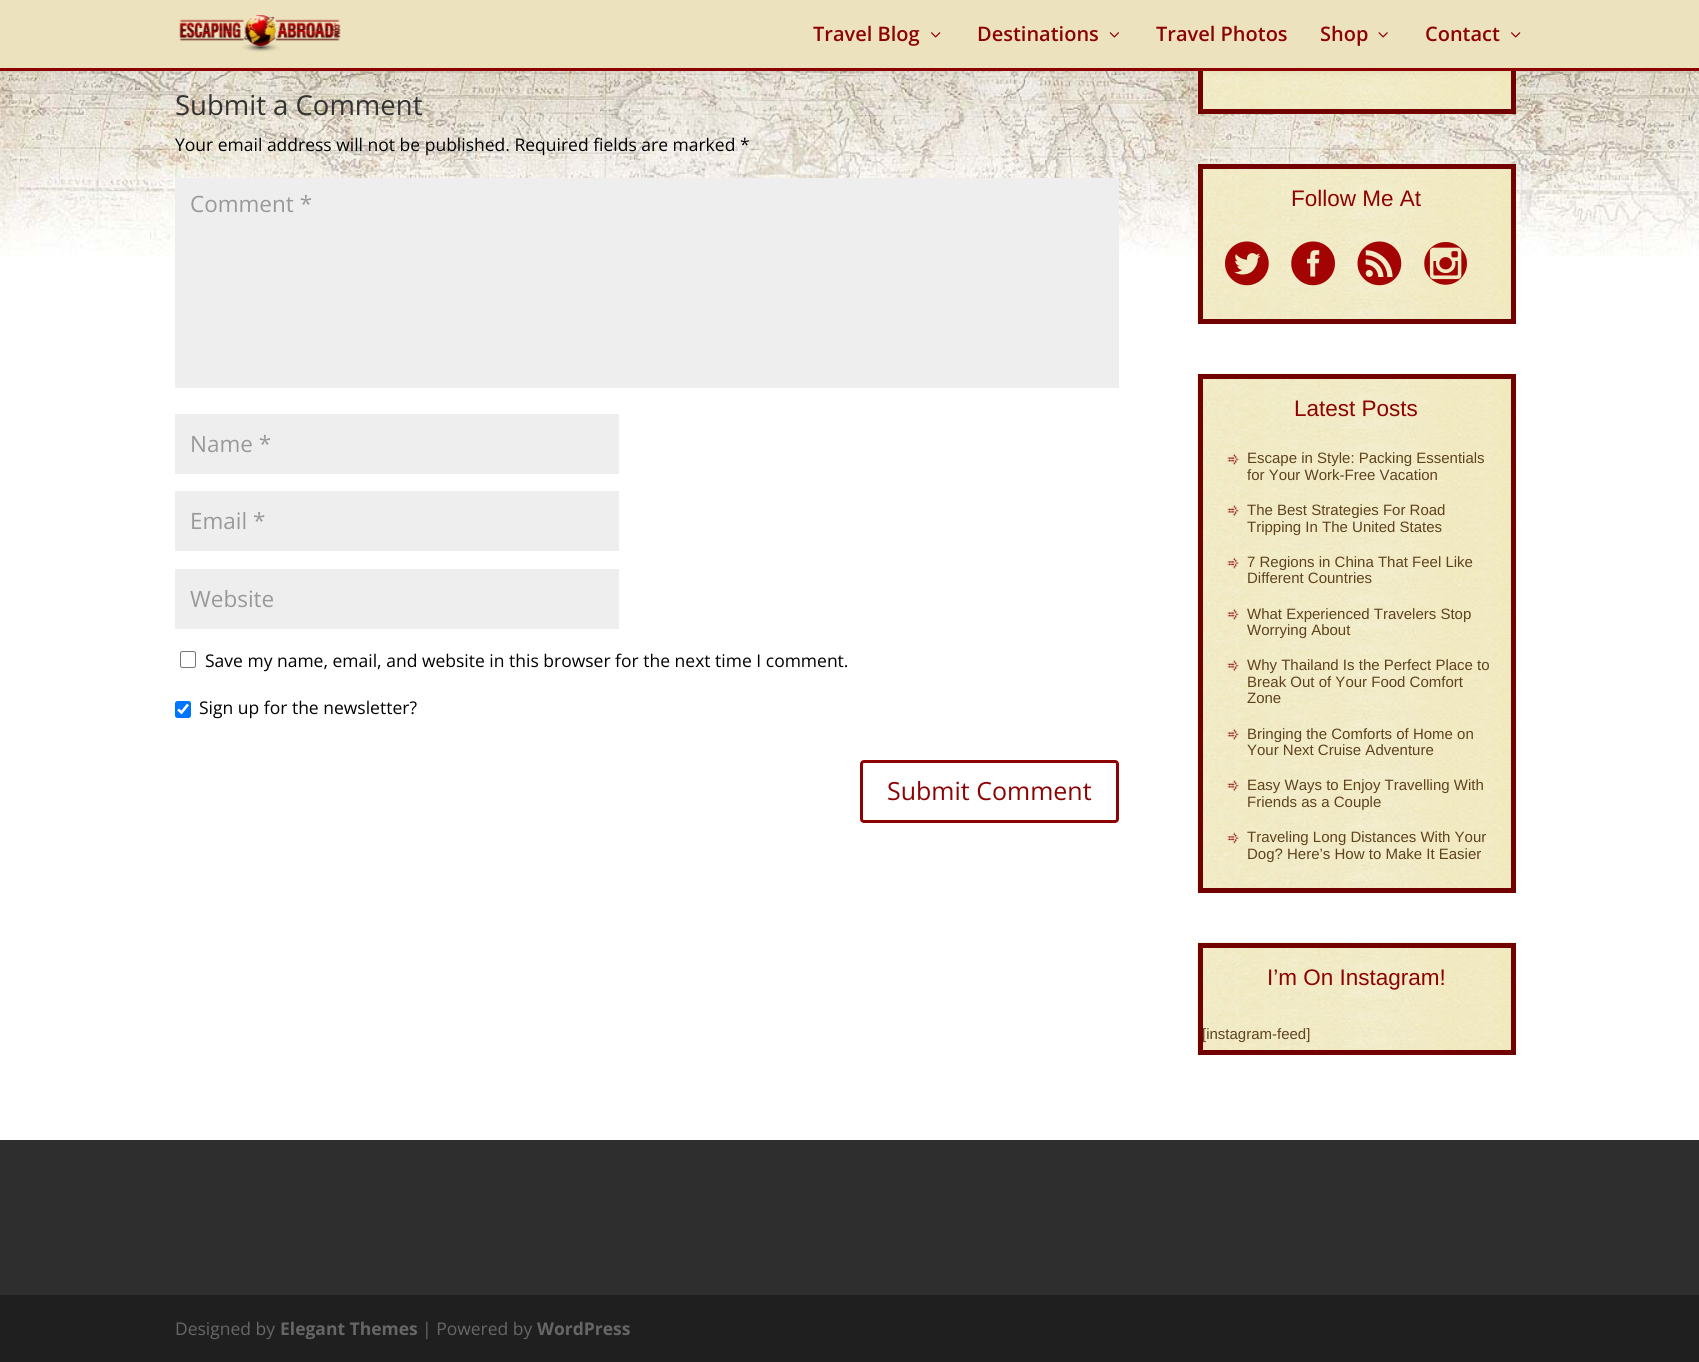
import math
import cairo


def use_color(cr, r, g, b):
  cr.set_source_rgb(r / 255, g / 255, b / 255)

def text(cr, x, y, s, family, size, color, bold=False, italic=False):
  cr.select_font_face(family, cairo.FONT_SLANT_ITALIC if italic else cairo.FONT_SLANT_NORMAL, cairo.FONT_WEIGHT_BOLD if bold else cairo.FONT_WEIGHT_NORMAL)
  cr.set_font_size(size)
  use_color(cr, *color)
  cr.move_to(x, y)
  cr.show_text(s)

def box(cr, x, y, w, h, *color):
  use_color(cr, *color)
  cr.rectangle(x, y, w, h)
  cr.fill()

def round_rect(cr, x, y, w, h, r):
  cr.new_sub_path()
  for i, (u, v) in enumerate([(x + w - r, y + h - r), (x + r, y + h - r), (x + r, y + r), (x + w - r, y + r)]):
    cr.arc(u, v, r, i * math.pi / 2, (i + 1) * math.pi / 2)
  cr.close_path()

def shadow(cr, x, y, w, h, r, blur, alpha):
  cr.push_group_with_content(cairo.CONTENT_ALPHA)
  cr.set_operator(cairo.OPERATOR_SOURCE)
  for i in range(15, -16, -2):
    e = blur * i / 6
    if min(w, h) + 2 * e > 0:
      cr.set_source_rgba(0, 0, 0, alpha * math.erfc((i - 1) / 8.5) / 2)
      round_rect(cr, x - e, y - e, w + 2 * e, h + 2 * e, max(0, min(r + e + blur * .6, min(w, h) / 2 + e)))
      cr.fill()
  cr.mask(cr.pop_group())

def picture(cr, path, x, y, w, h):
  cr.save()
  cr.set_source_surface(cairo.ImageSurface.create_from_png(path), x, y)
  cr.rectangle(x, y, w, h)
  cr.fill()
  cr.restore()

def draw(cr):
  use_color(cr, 255, 255, 255)
  cr.paint()
  picture(cr, "img_01.png", 0, 71, 1699, 185)
  picture(cr, "img_06.png", 1197, 71, 320, 43)
  cr.rectangle(1200.5, -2.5, 313, 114)
  use_color(cr, 114, 2, 2)
  cr.set_line_width(5)
  cr.stroke()
  use_color(cr, 0, 0, 0)
  shadow(cr, 0, 0, 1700, 70, 0, 4.5, 0.1)
  box(cr, 0, 0, 1699, 68, 236, 226, 190)
  box(cr, 0, 68, 1699, 3, 141, 3, 3)
  picture(cr, "img_02.png", 179, 15, 162, 37)
  picture(cr, "img_03.png", 931, 32, 10, 6)
  picture(cr, "img_04.png", 1109, 32, 10, 6)
  picture(cr, "img_05.png", 1378, 32, 10, 6)
  picture(cr, "img_03.png", 1511, 32, 10, 6)
  box(cr, 175, 178, 944, 210, 238, 238, 238)
  box(cr, 175, 414, 444, 60, 238, 238, 238)
  box(cr, 175, 491, 444, 60, 238, 238, 238)
  box(cr, 175, 569, 444, 60, 238, 238, 238)
  round_rect(cr, 180.5, 651.5, 15, 16, 2)
  use_color(cr, 118, 118, 118)
  cr.set_line_width(1)
  cr.stroke()
  use_color(cr, 0, 117, 255)
  round_rect(cr, 175, 701, 16, 17, 2.5)
  cr.fill()
  cr.new_path()
  cr.move_to(178, 709.5)
  cr.line_to(181.5, 712.5)
  cr.line_to(188, 704.5)
  use_color(cr, 255, 255, 255)
  cr.set_line_width(2.6)
  cr.stroke()
  round_rect(cr, 861.5, 761.5, 256, 60, 2.5)
  use_color(cr, 141, 3, 3)
  cr.set_line_width(3)
  cr.stroke()
  picture(cr, "img_07.png", 1197, 163, 320, 161)
  cr.rectangle(1200.5, 166.5, 313, 155)
  use_color(cr, 114, 2, 2)
  cr.set_line_width(5)
  cr.stroke()
  picture(cr, "img_08.png", 1225, 241, 44, 45)
  picture(cr, "img_09.png", 1291, 241, 44, 45)
  picture(cr, "img_10.png", 1357, 241, 45, 45)
  picture(cr, "img_11.png", 1424, 242, 43, 43)
  picture(cr, "img_12.png", 1197, 373, 320, 520)
  cr.rectangle(1200.5, 376.5, 313, 514)
  cr.stroke()
  picture(cr, "img_13.png", 1227, 453, 12, 12)
  picture(cr, "img_14.png", 1227, 505, 12, 12)
  picture(cr, "img_15.png", 1227, 557, 12, 12)
  picture(cr, "img_16.png", 1227, 608, 12, 12)
  picture(cr, "img_17.png", 1227, 660, 12, 12)
  picture(cr, "img_18.png", 1227, 728, 12, 12)
  picture(cr, "img_19.png", 1227, 780, 12, 12)
  picture(cr, "img_20.png", 1227, 832, 12, 12)
  picture(cr, "img_21.png", 1197, 942, 320, 113)
  cr.rectangle(1200.5, 945.5, 313, 107)
  cr.stroke()
  box(cr, 0, 1140, 1699, 155, 46, 46, 46)
  box(cr, 0, 1295, 1699, 67, 31, 31, 31)
  text(cr, 813, 41, "Travel Blog", "Open Sans SemiBold", 20, (141, 3, 3))
  text(cr, 977, 41, "Destinations", "Open Sans SemiBold", 20, (141, 3, 3))
  text(cr, 1156, 41, "Travel Photos", "Open Sans SemiBold", 20, (141, 3, 3))
  text(cr, 1320, 41, "Shop", "Open Sans SemiBold", 20, (141, 3, 3))
  text(cr, 1425, 41, "Contact", "Open Sans SemiBold", 20, (141, 3, 3))
  text(cr, 175, 115, "Submit a Comment", "Open Sans", 27.5, (51, 51, 51))
  text(cr, 175, 151, "Your email address will not be published. Required fields are marked *", "Open Sans", 17.5, (0, 0, 0))
  text(cr, 190, 212, "Comment *", "Open Sans", 22.5, (153, 153, 153))
  text(cr, 190, 452, "Name *", "Open Sans", 22.5, (153, 153, 153))
  text(cr, 190, 529, "Email *", "Open Sans", 22.5, (153, 153, 153))
  text(cr, 190, 607, "Website", "Open Sans", 22.5, (153, 153, 153))
  text(cr, 205, 667, "Save my name, email, and website in this browser for the next time I comment.", "Open Sans", 17.5, (0, 0, 0))
  text(cr, 199, 714, "Sign up for the newsletter?", "Open Sans", 17.5, (0, 0, 0))
  text(cr, 887, 800, "Submit Comment", "Open Sans", 25, (141, 3, 3))
  text(cr, 1291, 206, "Follow Me At", "Liberation Sans", 22.5, (141, 3, 3))
  text(cr, 1294, 416, "Latest Posts", "Liberation Sans", 22.5, (141, 3, 3))
  text(cr, 1247, 463, "Escape in Style: Packing Essentials", "Liberation Sans", 15, (94, 67, 29))
  text(cr, 1247, 480, "for Your Work-Free Vacation", "Liberation Sans", 15, (94, 67, 29))
  text(cr, 1247, 515, "The Best Strategies For Road", "Liberation Sans", 15, (94, 67, 29))
  text(cr, 1247, 532, "Tripping In The United States", "Liberation Sans", 15, (94, 67, 29))
  text(cr, 1247, 567, "7 Regions in China That Feel Like", "Liberation Sans", 15, (94, 67, 29))
  text(cr, 1247, 583, "Different Countries", "Liberation Sans", 15, (94, 67, 29))
  text(cr, 1247, 619, "What Experienced Travelers Stop", "Liberation Sans", 15, (94, 67, 29))
  text(cr, 1247, 635, "Worrying About", "Liberation Sans", 15, (94, 67, 29))
  text(cr, 1247, 670, "Why Thailand Is the Perfect Place to", "Liberation Sans", 15, (94, 67, 29))
  text(cr, 1247, 687, "Break Out of Your Food Comfort", "Liberation Sans", 15, (94, 67, 29))
  text(cr, 1247, 703, "Zone", "Liberation Sans", 15, (94, 67, 29))
  text(cr, 1247, 739, "Bringing the Comforts of Home on", "Liberation Sans", 15, (94, 67, 29))
  text(cr, 1247, 755, "Your Next Cruise Adventure", "Liberation Sans", 15, (94, 67, 29))
  text(cr, 1247, 790, "Easy Ways to Enjoy Travelling With", "Liberation Sans", 15, (94, 67, 29))
  text(cr, 1247, 807, "Friends as a Couple", "Liberation Sans", 15, (94, 67, 29))
  text(cr, 1247, 842, "Traveling Long Distances With Your", "Liberation Sans", 15, (94, 67, 29))
  text(cr, 1247, 859, "Dog? Here’s How to Make It Easier", "Liberation Sans", 15, (94, 67, 29))
  text(cr, 1267, 985, "I’m On Instagram!", "Liberation Sans", 22.5, (141, 3, 3))
  text(cr, 1202, 1039, "[instagram-feed]", "Liberation Sans", 15, (94, 67, 29))
  text(cr, 175, 1335, "Designed by", "Open Sans", 17.5, (102, 102, 102))
  text(cr, 280, 1335, "Elegant Themes", "Open Sans", 17.5, (102, 102, 102), bold=True)
  text(cr, 422, 1335, "| Powered by", "Open Sans", 17.5, (102, 102, 102))
  text(cr, 537, 1335, "WordPress", "Open Sans", 17.5, (102, 102, 102), bold=True)


surface = cairo.ImageSurface(cairo.FORMAT_RGB24, 1699, 1362)
cr = cairo.Context(surface)
options = cairo.FontOptions()
options.set_hint_metrics(cairo.HINT_METRICS_OFF)
options.set_hint_style(cairo.HINT_STYLE_NONE)
cr.set_font_options(options)
cr.set_miter_limit(4)
draw(cr)
surface.write_to_png("out.png")
